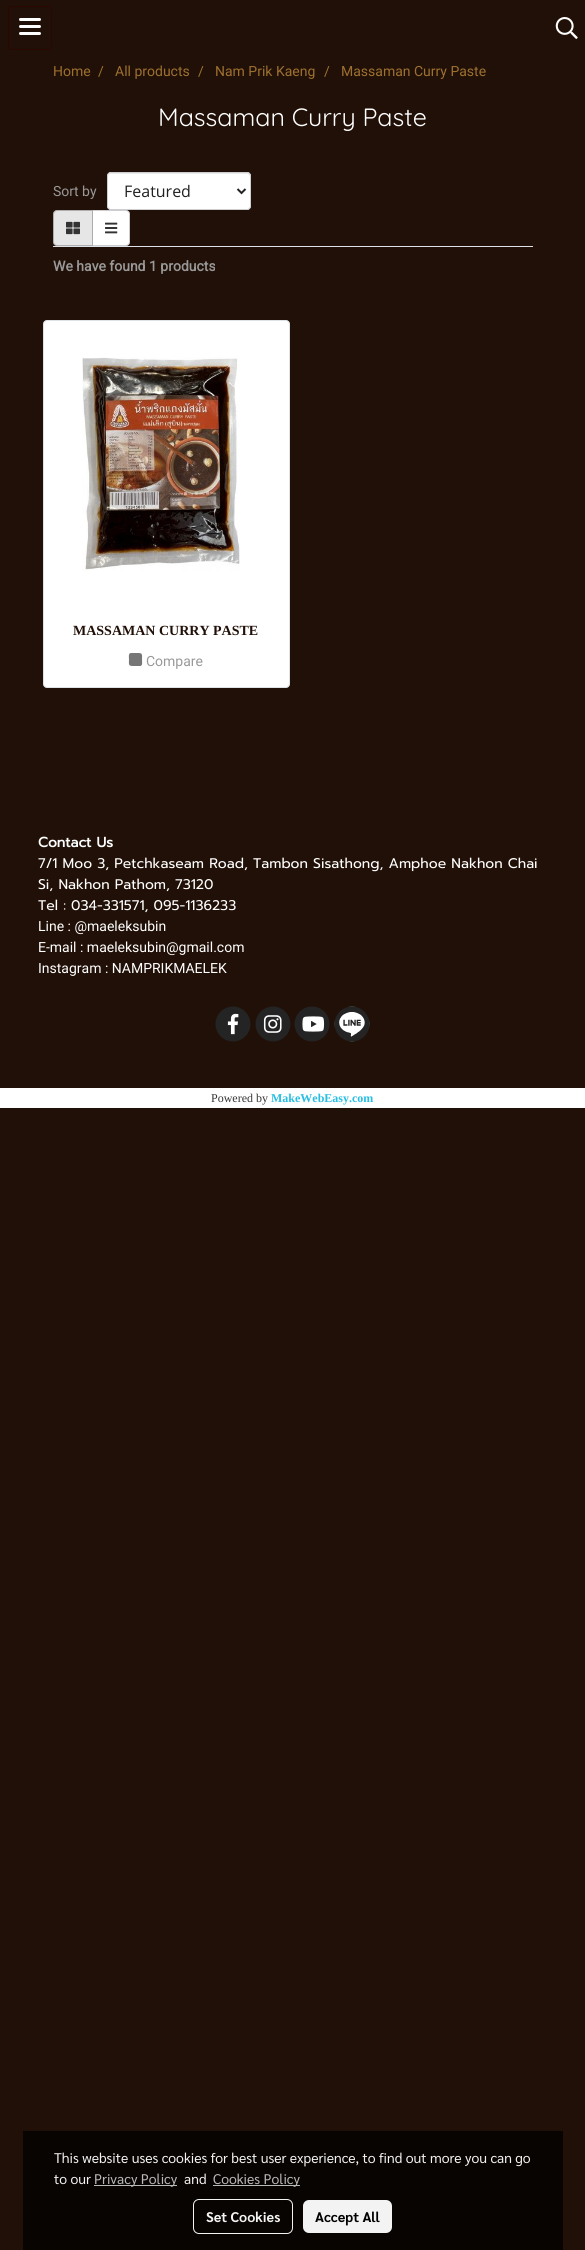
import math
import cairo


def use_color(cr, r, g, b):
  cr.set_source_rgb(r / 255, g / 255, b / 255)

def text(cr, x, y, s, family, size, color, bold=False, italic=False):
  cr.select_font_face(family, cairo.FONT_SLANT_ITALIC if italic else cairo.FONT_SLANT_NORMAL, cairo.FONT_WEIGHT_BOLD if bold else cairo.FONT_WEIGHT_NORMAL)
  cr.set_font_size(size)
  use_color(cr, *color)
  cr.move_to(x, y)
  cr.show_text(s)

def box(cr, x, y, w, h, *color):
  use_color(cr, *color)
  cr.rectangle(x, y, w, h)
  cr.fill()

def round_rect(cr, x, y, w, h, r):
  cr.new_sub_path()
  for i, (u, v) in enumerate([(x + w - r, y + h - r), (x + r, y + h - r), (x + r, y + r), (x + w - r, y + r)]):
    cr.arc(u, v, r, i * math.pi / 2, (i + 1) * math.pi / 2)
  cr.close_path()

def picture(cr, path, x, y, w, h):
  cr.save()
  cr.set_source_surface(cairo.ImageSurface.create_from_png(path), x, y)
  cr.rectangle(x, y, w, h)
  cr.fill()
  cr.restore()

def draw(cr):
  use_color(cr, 33, 16, 7)
  cr.paint()
  round_rect(cr, 8.5, 6.5, 43, 43, 3.5)
  use_color(cr, 43, 7, 0)
  cr.set_line_width(1)
  cr.stroke()
  use_color(cr, 255, 255, 255)
  round_rect(cr, 19, 25, 22, 3, 1.5)
  cr.fill()
  round_rect(cr, 19, 18, 22, 3, 1.5)
  cr.fill()
  round_rect(cr, 19, 32, 22, 3, 1.5)
  cr.fill()
  picture(cr, "img_01.png", 555, 17, 23, 22)
  round_rect(cr, 107, 172, 144, 38, 4)
  cr.fill()
  use_color(cr, 236, 236, 236)
  cr.new_path()
  cr.move_to(111, 174)
  cr.line_to(247, 174)
  cr.curve_to(249, 174, 250, 175, 250, 177)
  cr.line_to(250, 176)
  cr.curve_to(250, 174, 249, 173, 247, 173)
  cr.line_to(111, 173)
  cr.curve_to(109, 173, 108, 174, 108, 176)
  cr.line_to(108, 177)
  cr.curve_to(108, 175, 109, 174, 111, 174)
  cr.close_path()
  cr.fill()
  round_rect(cr, 107.5, 172.5, 143, 37, 3.5)
  use_color(cr, 205, 206, 210)
  cr.stroke()
  cr.new_path()
  cr.move_to(237.5, 189)
  cr.line_to(241.5, 193)
  cr.line_to(245.5, 189)
  use_color(cr, 33, 33, 33)
  cr.set_line_width(2)
  cr.stroke()
  use_color(cr, 255, 255, 255)
  cr.new_path()
  cr.move_to(92.5, 210.5)
  cr.line_to(126, 210.5)
  cr.curve_to(128, 210.5, 129.5, 212, 129.5, 214)
  cr.line_to(129.5, 242)
  cr.curve_to(129.5, 244, 128, 245.5, 126, 245.5)
  cr.line_to(92.5, 245.5)
  cr.close_path()
  cr.fill_preserve()
  use_color(cr, 204, 204, 204)
  cr.set_line_width(1)
  cr.stroke()
  use_color(cr, 230, 230, 230)
  cr.new_path()
  cr.move_to(57, 210.5)
  cr.line_to(92.5, 210.5)
  cr.line_to(92.5, 245.5)
  cr.line_to(57, 245.5)
  cr.curve_to(55, 245.5, 53.5, 244, 53.5, 242)
  cr.line_to(53.5, 214)
  cr.curve_to(53.5, 212, 55, 210.5, 57, 210.5)
  cr.close_path()
  cr.fill_preserve()
  use_color(cr, 173, 173, 173)
  cr.stroke()
  picture(cr, "img_02.png", 66, 221, 14, 14)
  picture(cr, "img_03.png", 105, 222, 13, 12)
  box(cr, 53, 246, 480, 1, 222, 226, 230)
  use_color(cr, 255, 255, 255)
  round_rect(cr, 43.5, 320.5, 246, 367, 3.5)
  cr.fill_preserve()
  use_color(cr, 222, 226, 230)
  cr.stroke()
  picture(cr, "img_04.png", 82, 357, 158, 214)
  use_color(cr, 118, 118, 118)
  cr.new_path()
  cr.move_to(131, 653)
  cr.line_to(138.5, 653)
  cr.curve_to(143, 653, 142, 655.5, 142, 659.5)
  cr.curve_to(142, 661.5, 143, 666, 140, 666)
  cr.line_to(132.5, 666)
  cr.curve_to(128, 666, 129, 663.5, 129, 659.5)
  cr.curve_to(129, 658, 128, 653, 131, 653)
  cr.close_path()
  cr.fill()
  use_color(cr, 36, 36, 36)
  cr.new_path()
  cr.move_to(233, 1006.5)
  cr.curve_to(223.5, 1006.5, 215.5, 1014.5, 215.5, 1024)
  cr.curve_to(215.5, 1033.5, 223.5, 1041.5, 233, 1041.5)
  cr.curve_to(242.5, 1041.5, 250.5, 1033.5, 250.5, 1024)
  cr.curve_to(250.5, 1014.5, 242.5, 1006.5, 233, 1006.5)
  cr.close_path()
  cr.fill()
  picture(cr, "img_05.png", 227, 1013, 12, 22)
  cr.new_path()
  cr.move_to(273, 1006.5)
  cr.curve_to(263.5, 1006.5, 255.5, 1014.5, 255.5, 1024)
  cr.curve_to(255.5, 1033.5, 263.5, 1041.5, 273, 1041.5)
  cr.curve_to(282.5, 1041.5, 290.5, 1033.5, 290.5, 1024)
  cr.curve_to(290.5, 1014.5, 282.5, 1006.5, 273, 1006.5)
  cr.close_path()
  cr.fill()
  picture(cr, "img_06.png", 263, 1015, 19, 18)
  cr.new_path()
  cr.move_to(312, 1006.5)
  cr.curve_to(302.5, 1006.5, 294.5, 1014.5, 294.5, 1024)
  cr.curve_to(294.5, 1033.5, 302.5, 1041.5, 312, 1041.5)
  cr.curve_to(321.5, 1041.5, 329.5, 1033.5, 329.5, 1024)
  cr.curve_to(329.5, 1014.5, 321.5, 1006.5, 312, 1006.5)
  cr.close_path()
  cr.fill()
  picture(cr, "img_07.png", 302, 1016, 23, 16)
  cr.new_path()
  cr.move_to(352, 1006.5)
  cr.curve_to(342.5, 1006.5, 334.5, 1014.5, 334.5, 1024)
  cr.curve_to(334.5, 1033.5, 342.5, 1041.5, 352, 1041.5)
  cr.curve_to(361.5, 1041.5, 369.5, 1033.5, 369.5, 1024)
  cr.curve_to(369.5, 1014.5, 361.5, 1006.5, 352, 1006.5)
  cr.close_path()
  cr.fill()
  picture(cr, "img_08.png", 334, 1006, 36, 36)
  box(cr, 0, 1088, 585, 20, 255, 255, 255)
  box(cr, 23, 2131, 540, 119, 8, 4, 1)
  box(cr, 94, 2185, 83, 1, 186, 185, 185)
  box(cr, 213, 2185, 87, 1, 186, 185, 185)
  round_rect(cr, 193.5, 2199.5, 99, 34, 5.5)
  use_color(cr, 244, 243, 243)
  cr.stroke()
  round_rect(cr, 303, 2200, 89, 33, 6)
  cr.fill()
  text(cr, 53, 76, "Home", "Roboto", 14, (157, 112, 47))
  text(cr, 98, 76, "/", "Roboto", 14, (157, 112, 47))
  text(cr, 115, 76, "All products", "Roboto", 14, (157, 112, 47))
  text(cr, 198, 76, "/", "Roboto", 14, (157, 112, 47))
  text(cr, 215, 76, "Nam Prik Kaeng", "Roboto", 14, (157, 112, 47))
  text(cr, 324, 76, "/", "Roboto", 14, (157, 112, 47))
  text(cr, 341, 76, "Massaman Curry Paste", "Roboto", 14, (157, 112, 47))
  text(cr, 158, 126, "Massaman Curry Paste", "Quicksand Light", 25, (255, 255, 255))
  text(cr, 53, 196, "Sort by", "Roboto", 14, (153, 153, 153))
  text(cr, 124, 197, "Featured", "Open Sans", 16, (33, 33, 33))
  text(cr, 53, 271, "We have found 1 products", "Roboto", 14, (153, 153, 153), bold=True)
  text(cr, 73, 635, "MASSAMAN CURRY PASTE", "Liberation Serif", 14, (33, 16, 7), bold=True)
  text(cr, 146, 666, "Compare", "Roboto", 14, (153, 153, 153))
  text(cr, 38, 847, "Contact Us", "Prompt", 14, (255, 255, 255), bold=True)
  text(cr, 38, 868, "7/1 Moo 3, Petchkaseam Road, Tambon Sisathong, Amphoe Nakhon Chai", "Prompt", 14, (255, 255, 255))
  text(cr, 38, 889, "Si, Nakhon Pathom, 73120", "Prompt", 14, (255, 255, 255))
  text(cr, 38, 910, "Tel : 034-331571, 095-1136233", "Prompt", 14, (255, 255, 255))
  text(cr, 38, 931, "Line : @maeleksubin", "Roboto", 14, (255, 255, 255))
  text(cr, 38, 952, "E-mail : maeleksubin@gmail.com", "Roboto", 14, (255, 255, 255))
  text(cr, 38, 973, "Instagram : NAMPRIKMAELEK", "Roboto", 14, (255, 255, 255))
  text(cr, 211, 1102, "Powered by", "Liberation Serif", 12, (53, 53, 53))
  text(cr, 271, 1102, "MakeWebEasy.com", "Liberation Serif", 12, (40, 190, 227), bold=True)
  text(cr, 54, 2163, "This website uses cookies for best user experience, to find out more you can go", "Sarabun", 14, (244, 243, 243))
  text(cr, 54, 2184, "to our", "Sarabun", 14, (244, 243, 243))
  text(cr, 94, 2184, "Privacy Policy", "Sarabun", 14, (186, 185, 185))
  text(cr, 184, 2184, "and", "Sarabun", 14, (244, 243, 243))
  text(cr, 213, 2184, "Cookies Policy", "Sarabun", 14, (186, 185, 185))
  text(cr, 206, 2222, "Set Cookies", "Sarabun", 14, (244, 243, 243), bold=True)
  text(cr, 315, 2222, "Accept All", "Sarabun", 14, (2, 1, 0), bold=True)


surface = cairo.ImageSurface(cairo.FORMAT_RGB24, 585, 2250)
cr = cairo.Context(surface)
options = cairo.FontOptions()
options.set_hint_metrics(cairo.HINT_METRICS_OFF)
options.set_hint_style(cairo.HINT_STYLE_NONE)
cr.set_font_options(options)
cr.set_miter_limit(4)
draw(cr)
surface.write_to_png("out.png")
